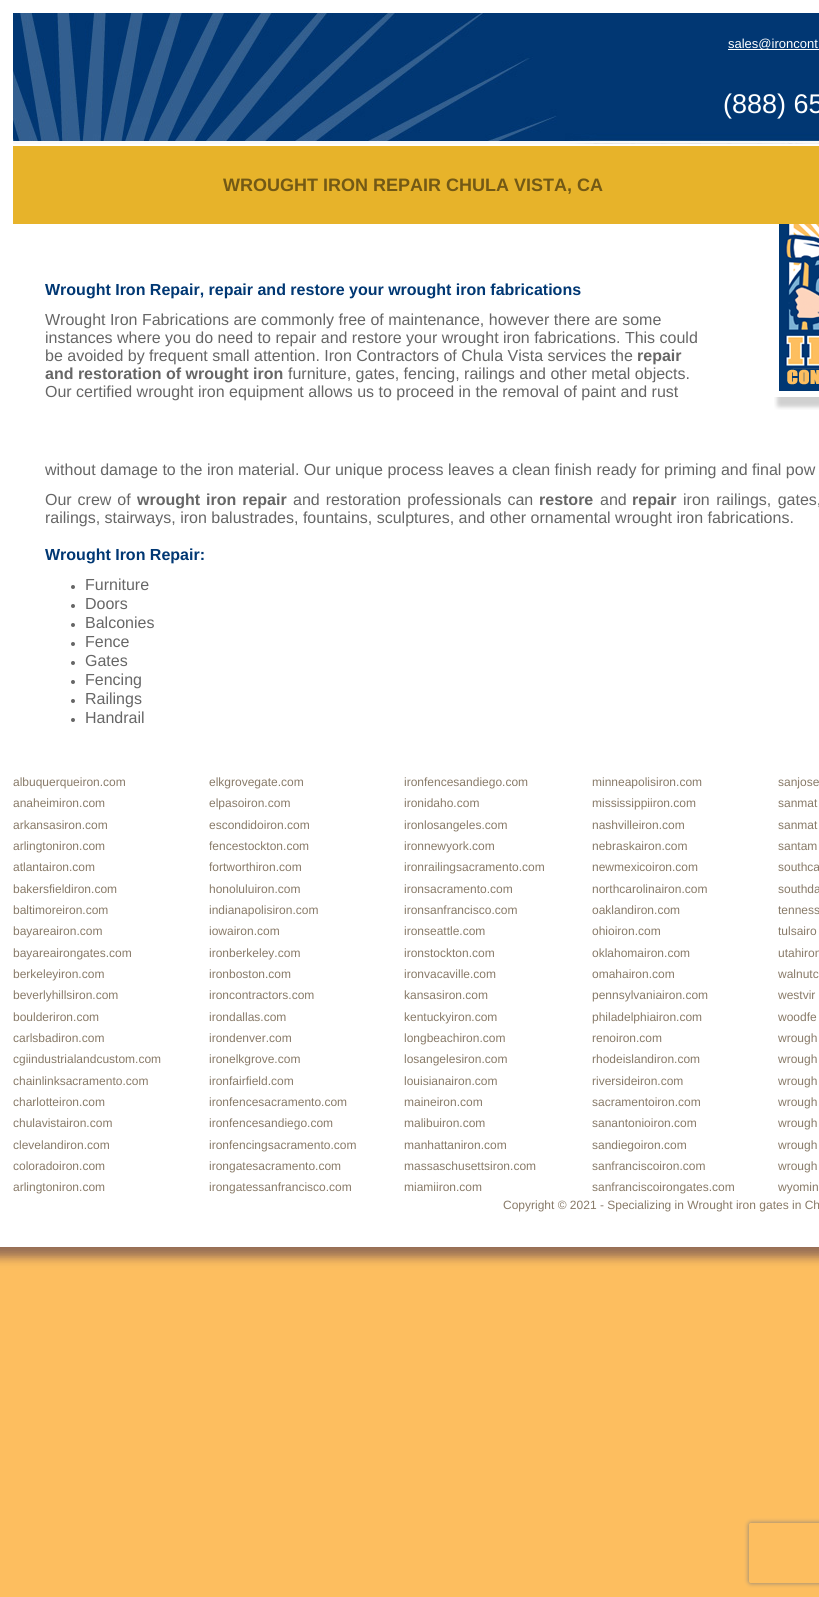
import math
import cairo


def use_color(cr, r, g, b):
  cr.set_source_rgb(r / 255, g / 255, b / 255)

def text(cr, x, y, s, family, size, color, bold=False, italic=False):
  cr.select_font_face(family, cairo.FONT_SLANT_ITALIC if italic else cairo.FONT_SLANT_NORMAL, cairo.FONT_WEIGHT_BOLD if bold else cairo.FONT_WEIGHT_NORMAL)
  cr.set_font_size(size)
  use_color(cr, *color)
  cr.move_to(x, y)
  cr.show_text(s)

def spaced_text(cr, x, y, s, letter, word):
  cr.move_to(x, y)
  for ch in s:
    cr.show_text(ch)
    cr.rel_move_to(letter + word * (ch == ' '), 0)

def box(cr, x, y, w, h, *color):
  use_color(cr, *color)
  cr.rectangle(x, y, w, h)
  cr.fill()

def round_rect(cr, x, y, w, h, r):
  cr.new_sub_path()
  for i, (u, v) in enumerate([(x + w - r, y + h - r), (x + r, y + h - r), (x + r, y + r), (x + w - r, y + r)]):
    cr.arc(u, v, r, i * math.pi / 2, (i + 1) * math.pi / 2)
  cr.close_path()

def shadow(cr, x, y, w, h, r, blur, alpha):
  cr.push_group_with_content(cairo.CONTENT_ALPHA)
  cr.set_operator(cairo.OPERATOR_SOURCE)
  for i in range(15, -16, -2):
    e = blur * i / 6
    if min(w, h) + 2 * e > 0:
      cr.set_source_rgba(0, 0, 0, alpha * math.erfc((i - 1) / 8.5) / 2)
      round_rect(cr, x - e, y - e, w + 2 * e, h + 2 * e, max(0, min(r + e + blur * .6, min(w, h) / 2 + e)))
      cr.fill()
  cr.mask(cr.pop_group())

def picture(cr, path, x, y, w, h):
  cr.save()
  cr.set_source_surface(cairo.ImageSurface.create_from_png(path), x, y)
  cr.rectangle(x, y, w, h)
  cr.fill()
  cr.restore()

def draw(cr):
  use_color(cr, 253, 190, 95)
  cr.paint()
  use_color(cr, 150, 110, 86)
  shadow(cr, -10, -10, 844, 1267, 0, 5, 1)
  box(cr, 13, 144, 806, 1103, 255, 255, 255)
  box(cr, 13, 0, 806, 13, 255, 255, 255)
  box(cr, 0, 0, 13, 1247, 255, 255, 255)
  picture(cr, "img_01.png", 13, 13, 806, 131)
  box(cr, 728, 49, 91, 1, 255, 255, 255)
  picture(cr, "img_02.png", 774, 224, 45, 186)
  box(cr, 13, 146, 806, 78, 231, 179, 42)
  use_color(cr, 102, 102, 102)
  cr.arc(73, 587, 2, 0, 2 * math.pi)
  cr.fill()
  cr.arc(73, 606, 2, 0, 2 * math.pi)
  cr.fill()
  cr.arc(73, 625, 2, 0, 2 * math.pi)
  cr.fill()
  cr.arc(73, 644, 2, 0, 2 * math.pi)
  cr.fill()
  cr.arc(73, 663, 2, 0, 2 * math.pi)
  cr.fill()
  cr.arc(73, 682, 2, 0, 2 * math.pi)
  cr.fill()
  cr.arc(73, 701, 2, 0, 2 * math.pi)
  cr.fill()
  cr.arc(73, 720, 2, 0, 2 * math.pi)
  cr.fill()
  cr.save()
  cr.set_fill_rule(cairo.FILL_RULE_EVEN_ODD)
  cr.new_path()
  cr.move_to(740, 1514)
  cr.line_to(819, 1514)
  cr.line_to(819, 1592)
  cr.line_to(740, 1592)
  cr.close_path()
  cr.move_to(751, 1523)
  cr.line_to(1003, 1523)
  cr.curve_to(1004, 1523, 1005, 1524, 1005, 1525)
  cr.line_to(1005, 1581)
  cr.curve_to(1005, 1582, 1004, 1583, 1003, 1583)
  cr.line_to(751, 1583)
  cr.curve_to(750, 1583, 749, 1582, 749, 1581)
  cr.line_to(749, 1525)
  cr.curve_to(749, 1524, 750, 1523, 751, 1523)
  cr.close_path()
  cr.clip()
  use_color(cr, 128, 128, 128)
  shadow(cr, 749, 1523, 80, 60, 2, 2.5, 1)
  cr.restore()
  text(cr, 728, 48, "sales@ironcont", "Liberation Sans", 13, (255, 255, 255))
  text(cr, 723, 113, "(888) 65", "Liberation Sans", 27, (255, 255, 255))
  text(cr, 223, 191, "WROUGHT IRON REPAIR CHULA VISTA, CA", "Liberation Sans", 18, (115, 89, 21), bold=True)
  text(cr, 45, 295, "Wrought Iron Repair, repair and restore your wrought iron fabrications", "Liberation Sans", 16, (0, 55, 115), bold=True)
  text(cr, 45, 325, "Wrought Iron Fabrications are commonly free of maintenance, however there are some", "Liberation Sans", 16, (102, 102, 102))
  text(cr, 45, 343, "instances where you do need to repair and restore your wrought iron fabrications. This could", "Liberation Sans", 16, (102, 102, 102))
  text(cr, 45, 361, "be avoided by frequent small attention. Iron Contractors of Chula Vista services the", "Liberation Sans", 16, (102, 102, 102))
  text(cr, 637, 361, "repair", "Liberation Sans", 16, (102, 102, 102), bold=True)
  text(cr, 45, 379, "and restoration of wrought iron", "Liberation Sans", 16, (102, 102, 102), bold=True)
  text(cr, 288, 379, "furniture, gates, fencing, railings and other metal objects.", "Liberation Sans", 16, (102, 102, 102))
  text(cr, 45, 397, "Our certified wrought iron equipment allows us to proceed in the removal of paint and rust", "Liberation Sans", 16, (102, 102, 102))
  text(cr, 45, 475, "without damage to the iron material. Our unique process leaves a clean finish ready for priming and final pow", "Liberation Sans", 16, (102, 102, 102))
  spaced_text(cr, 45, 505, "Our crew of", 0, 1.5)
  cr.select_font_face("Liberation Sans", cairo.FONT_SLANT_NORMAL, cairo.FONT_WEIGHT_BOLD)
  spaced_text(cr, 137, 505, "wrought iron repair", 0, 1.5)
  cr.select_font_face("Liberation Sans")
  spaced_text(cr, 293, 505, "and restoration professionals can", 0, 1.5)
  text(cr, 539, 505, "restore", "Liberation Sans", 16, (102, 102, 102), bold=True)
  text(cr, 600, 505, "and", "Liberation Sans", 16, (102, 102, 102))
  text(cr, 632, 505, "repair", "Liberation Sans", 16, (102, 102, 102), bold=True)
  cr.select_font_face("Liberation Sans")
  spaced_text(cr, 683, 505, "iron railings, gates,", 0, 2)
  text(cr, 45, 523, "railings, stairways, iron balustrades, fountains, sculptures, and other ornamental wrought iron fabrications.", "Liberation Sans", 16, (102, 102, 102))
  text(cr, 45, 560, "Wrought Iron Repair:", "Liberation Sans", 16, (0, 55, 115), bold=True)
  text(cr, 85, 590, "Furniture", "Liberation Sans", 16, (102, 102, 102))
  text(cr, 85, 609, "Doors", "Liberation Sans", 16, (102, 102, 102))
  text(cr, 85, 628, "Balconies", "Liberation Sans", 16, (102, 102, 102))
  text(cr, 85, 647, "Fence", "Liberation Sans", 16, (102, 102, 102))
  text(cr, 85, 666, "Gates", "Liberation Sans", 16, (102, 102, 102))
  text(cr, 85, 685, "Fencing", "Liberation Sans", 16, (102, 102, 102))
  text(cr, 85, 704, "Railings", "Liberation Sans", 16, (102, 102, 102))
  text(cr, 85, 723, "Handrail", "Liberation Sans", 16, (102, 102, 102))
  text(cr, 13, 786, "albuquerqueiron.com", "Liberation Sans", 12, (136, 122, 104))
  text(cr, 209, 786, "elkgrovegate.com", "Liberation Sans", 12, (136, 122, 104))
  text(cr, 404, 786, "ironfencesandiego.com", "Liberation Sans", 12, (136, 122, 104))
  text(cr, 592, 786, "minneapolisiron.com", "Liberation Sans", 12, (136, 122, 104))
  text(cr, 778, 786, "sanjose", "Liberation Sans", 12, (136, 122, 104))
  text(cr, 13, 807, "anaheimiron.com", "Liberation Sans", 12, (136, 122, 104))
  text(cr, 209, 807, "elpasoiron.com", "Liberation Sans", 12, (136, 122, 104))
  text(cr, 404, 807, "ironidaho.com", "Liberation Sans", 12, (136, 122, 104))
  text(cr, 592, 807, "mississippiiron.com", "Liberation Sans", 12, (136, 122, 104))
  text(cr, 778, 807, "sanmat", "Liberation Sans", 12, (136, 122, 104))
  text(cr, 13, 829, "arkansasiron.com", "Liberation Sans", 12, (136, 122, 104))
  text(cr, 209, 829, "escondidoiron.com", "Liberation Sans", 12, (136, 122, 104))
  text(cr, 404, 829, "ironlosangeles.com", "Liberation Sans", 12, (136, 122, 104))
  text(cr, 592, 829, "nashvilleiron.com", "Liberation Sans", 12, (136, 122, 104))
  text(cr, 778, 829, "sanmat", "Liberation Sans", 12, (136, 122, 104))
  text(cr, 13, 850, "arlingtoniron.com", "Liberation Sans", 12, (136, 122, 104))
  text(cr, 209, 850, "fencestockton.com", "Liberation Sans", 12, (136, 122, 104))
  text(cr, 404, 850, "ironnewyork.com", "Liberation Sans", 12, (136, 122, 104))
  text(cr, 592, 850, "nebraskairon.com", "Liberation Sans", 12, (136, 122, 104))
  text(cr, 778, 850, "santam", "Liberation Sans", 12, (136, 122, 104))
  text(cr, 13, 871, "atlantairon.com", "Liberation Sans", 12, (136, 122, 104))
  text(cr, 209, 871, "fortworthiron.com", "Liberation Sans", 12, (136, 122, 104))
  text(cr, 404, 871, "ironrailingsacramento.com", "Liberation Sans", 12, (136, 122, 104))
  text(cr, 592, 871, "newmexicoiron.com", "Liberation Sans", 12, (136, 122, 104))
  text(cr, 778, 871, "southca", "Liberation Sans", 12, (136, 122, 104))
  text(cr, 13, 893, "bakersfieldiron.com", "Liberation Sans", 12, (136, 122, 104))
  text(cr, 209, 893, "honoluluiron.com", "Liberation Sans", 12, (136, 122, 104))
  text(cr, 404, 893, "ironsacramento.com", "Liberation Sans", 12, (136, 122, 104))
  text(cr, 592, 893, "northcarolinairon.com", "Liberation Sans", 12, (136, 122, 104))
  text(cr, 778, 893, "southda", "Liberation Sans", 12, (136, 122, 104))
  text(cr, 13, 914, "baltimoreiron.com", "Liberation Sans", 12, (136, 122, 104))
  text(cr, 209, 914, "indianapolisiron.com", "Liberation Sans", 12, (136, 122, 104))
  text(cr, 404, 914, "ironsanfrancisco.com", "Liberation Sans", 12, (136, 122, 104))
  text(cr, 592, 914, "oaklandiron.com", "Liberation Sans", 12, (136, 122, 104))
  text(cr, 778, 914, "tenness", "Liberation Sans", 12, (136, 122, 104))
  text(cr, 13, 935, "bayareairon.com", "Liberation Sans", 12, (136, 122, 104))
  text(cr, 209, 935, "iowairon.com", "Liberation Sans", 12, (136, 122, 104))
  text(cr, 404, 935, "ironseattle.com", "Liberation Sans", 12, (136, 122, 104))
  text(cr, 592, 935, "ohioiron.com", "Liberation Sans", 12, (136, 122, 104))
  text(cr, 778, 935, "tulsairo", "Liberation Sans", 12, (136, 122, 104))
  text(cr, 13, 957, "bayareairongates.com", "Liberation Sans", 12, (136, 122, 104))
  text(cr, 209, 957, "ironberkeley.com", "Liberation Sans", 12, (136, 122, 104))
  text(cr, 404, 957, "ironstockton.com", "Liberation Sans", 12, (136, 122, 104))
  text(cr, 592, 957, "oklahomairon.com", "Liberation Sans", 12, (136, 122, 104))
  text(cr, 778, 957, "utahiron", "Liberation Sans", 12, (136, 122, 104))
  text(cr, 13, 978, "berkeleyiron.com", "Liberation Sans", 12, (136, 122, 104))
  text(cr, 209, 978, "ironboston.com", "Liberation Sans", 12, (136, 122, 104))
  text(cr, 404, 978, "ironvacaville.com", "Liberation Sans", 12, (136, 122, 104))
  text(cr, 592, 978, "omahairon.com", "Liberation Sans", 12, (136, 122, 104))
  text(cr, 778, 978, "walnutc", "Liberation Sans", 12, (136, 122, 104))
  text(cr, 13, 999, "beverlyhillsiron.com", "Liberation Sans", 12, (136, 122, 104))
  text(cr, 209, 999, "ironcontractors.com", "Liberation Sans", 12, (136, 122, 104))
  text(cr, 404, 999, "kansasiron.com", "Liberation Sans", 12, (136, 122, 104))
  text(cr, 592, 999, "pennsylvaniairon.com", "Liberation Sans", 12, (136, 122, 104))
  text(cr, 778, 999, "westvir", "Liberation Sans", 12, (136, 122, 104))
  text(cr, 13, 1021, "boulderiron.com", "Liberation Sans", 12, (136, 122, 104))
  text(cr, 209, 1021, "irondallas.com", "Liberation Sans", 12, (136, 122, 104))
  text(cr, 404, 1021, "kentuckyiron.com", "Liberation Sans", 12, (136, 122, 104))
  text(cr, 592, 1021, "philadelphiairon.com", "Liberation Sans", 12, (136, 122, 104))
  text(cr, 778, 1021, "woodfe", "Liberation Sans", 12, (136, 122, 104))
  text(cr, 13, 1042, "carlsbadiron.com", "Liberation Sans", 12, (136, 122, 104))
  text(cr, 209, 1042, "irondenver.com", "Liberation Sans", 12, (136, 122, 104))
  text(cr, 404, 1042, "longbeachiron.com", "Liberation Sans", 12, (136, 122, 104))
  text(cr, 592, 1042, "renoiron.com", "Liberation Sans", 12, (136, 122, 104))
  text(cr, 778, 1042, "wrough", "Liberation Sans", 12, (136, 122, 104))
  text(cr, 13, 1063, "cgiindustrialandcustom.com", "Liberation Sans", 12, (136, 122, 104))
  text(cr, 209, 1063, "ironelkgrove.com", "Liberation Sans", 12, (136, 122, 104))
  text(cr, 404, 1063, "losangelesiron.com", "Liberation Sans", 12, (136, 122, 104))
  text(cr, 592, 1063, "rhodeislandiron.com", "Liberation Sans", 12, (136, 122, 104))
  text(cr, 778, 1063, "wrough", "Liberation Sans", 12, (136, 122, 104))
  text(cr, 13, 1085, "chainlinksacramento.com", "Liberation Sans", 12, (136, 122, 104))
  text(cr, 209, 1085, "ironfairfield.com", "Liberation Sans", 12, (136, 122, 104))
  text(cr, 404, 1085, "louisianairon.com", "Liberation Sans", 12, (136, 122, 104))
  text(cr, 592, 1085, "riversideiron.com", "Liberation Sans", 12, (136, 122, 104))
  text(cr, 778, 1085, "wrough", "Liberation Sans", 12, (136, 122, 104))
  text(cr, 13, 1106, "charlotteiron.com", "Liberation Sans", 12, (136, 122, 104))
  text(cr, 209, 1106, "ironfencesacramento.com", "Liberation Sans", 12, (136, 122, 104))
  text(cr, 404, 1106, "maineiron.com", "Liberation Sans", 12, (136, 122, 104))
  text(cr, 592, 1106, "sacramentoiron.com", "Liberation Sans", 12, (136, 122, 104))
  text(cr, 778, 1106, "wrough", "Liberation Sans", 12, (136, 122, 104))
  text(cr, 13, 1127, "chulavistairon.com", "Liberation Sans", 12, (136, 122, 104))
  text(cr, 209, 1127, "ironfencesandiego.com", "Liberation Sans", 12, (136, 122, 104))
  text(cr, 404, 1127, "malibuiron.com", "Liberation Sans", 12, (136, 122, 104))
  text(cr, 592, 1127, "sanantonioiron.com", "Liberation Sans", 12, (136, 122, 104))
  text(cr, 778, 1127, "wrough", "Liberation Sans", 12, (136, 122, 104))
  text(cr, 13, 1149, "clevelandiron.com", "Liberation Sans", 12, (136, 122, 104))
  text(cr, 209, 1149, "ironfencingsacramento.com", "Liberation Sans", 12, (136, 122, 104))
  text(cr, 404, 1149, "manhattaniron.com", "Liberation Sans", 12, (136, 122, 104))
  text(cr, 592, 1149, "sandiegoiron.com", "Liberation Sans", 12, (136, 122, 104))
  text(cr, 778, 1149, "wrough", "Liberation Sans", 12, (136, 122, 104))
  text(cr, 13, 1170, "coloradoiron.com", "Liberation Sans", 12, (136, 122, 104))
  text(cr, 209, 1170, "irongatesacramento.com", "Liberation Sans", 12, (136, 122, 104))
  text(cr, 404, 1170, "massaschusettsiron.com", "Liberation Sans", 12, (136, 122, 104))
  text(cr, 592, 1170, "sanfranciscoiron.com", "Liberation Sans", 12, (136, 122, 104))
  text(cr, 778, 1170, "wrough", "Liberation Sans", 12, (136, 122, 104))
  text(cr, 13, 1191, "arlingtoniron.com", "Liberation Sans", 12, (136, 122, 104))
  text(cr, 209, 1191, "irongatessanfrancisco.com", "Liberation Sans", 12, (136, 122, 104))
  text(cr, 404, 1191, "miamiiron.com", "Liberation Sans", 12, (136, 122, 104))
  text(cr, 592, 1191, "sanfranciscoirongates.com", "Liberation Sans", 12, (136, 122, 104))
  text(cr, 778, 1191, "wyomin", "Liberation Sans", 12, (136, 122, 104))
  text(cr, 503, 1209, "Copyright © 2021 - Specializing in Wrought iron gates in Ch", "Liberation Sans", 12, (136, 122, 104))


surface = cairo.ImageSurface(cairo.FORMAT_RGB24, 819, 1597)
cr = cairo.Context(surface)
options = cairo.FontOptions()
options.set_hint_metrics(cairo.HINT_METRICS_OFF)
options.set_hint_style(cairo.HINT_STYLE_NONE)
cr.set_font_options(options)
cr.set_miter_limit(4)
draw(cr)
surface.write_to_png("out.png")
